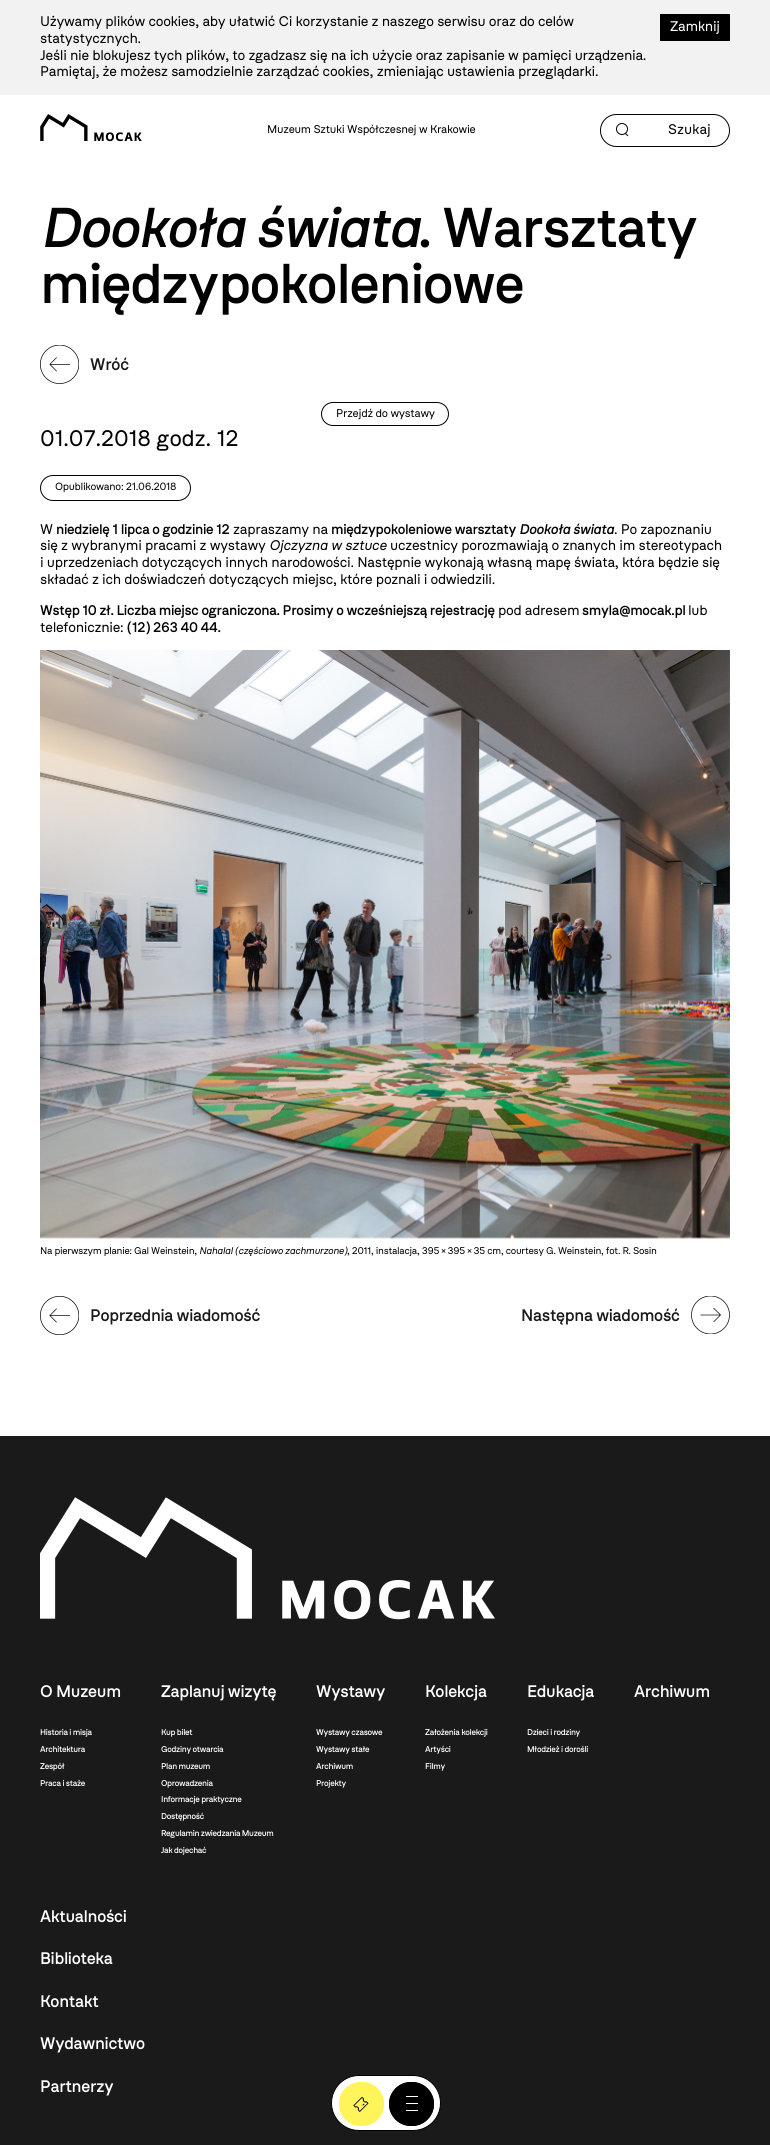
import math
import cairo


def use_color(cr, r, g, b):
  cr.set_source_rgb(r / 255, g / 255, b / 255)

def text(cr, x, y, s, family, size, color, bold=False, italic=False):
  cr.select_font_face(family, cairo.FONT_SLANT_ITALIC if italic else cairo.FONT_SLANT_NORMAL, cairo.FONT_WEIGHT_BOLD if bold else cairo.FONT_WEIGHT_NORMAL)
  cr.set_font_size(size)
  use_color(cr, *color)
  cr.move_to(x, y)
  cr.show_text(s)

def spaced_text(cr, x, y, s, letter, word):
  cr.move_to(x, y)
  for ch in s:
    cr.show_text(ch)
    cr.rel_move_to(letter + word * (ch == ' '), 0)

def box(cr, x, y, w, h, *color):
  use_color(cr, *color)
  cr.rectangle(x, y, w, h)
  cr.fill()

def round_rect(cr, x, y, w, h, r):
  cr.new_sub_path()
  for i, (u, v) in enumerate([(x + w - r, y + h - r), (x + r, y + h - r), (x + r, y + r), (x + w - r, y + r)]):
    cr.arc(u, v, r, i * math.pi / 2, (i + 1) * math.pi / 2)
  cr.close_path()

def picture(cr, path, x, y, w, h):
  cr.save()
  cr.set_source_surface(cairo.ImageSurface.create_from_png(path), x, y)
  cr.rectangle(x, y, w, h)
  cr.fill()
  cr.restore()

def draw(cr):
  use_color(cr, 255, 255, 255)
  cr.paint()
  box(cr, 0, 0, 770, 95, 242, 242, 242)
  box(cr, 660, 14, 70, 27, 0, 0, 0)
  picture(cr, "img_01.png", 40, 114, 102, 28)
  cr.arc(622, 129, 5.5, 0, 2 * math.pi)
  cr.set_line_width(1)
  cr.stroke()
  cr.new_path()
  cr.move_to(625, 133)
  cr.line_to(628, 136)
  cr.stroke()
  round_rect(cr, 600.5, 114.5, 129, 32, 16)
  cr.stroke()
  picture(cr, "img_02.png", 40, 345, 39, 39)
  round_rect(cr, 321.5, 402.5, 127, 23, 11.5)
  cr.stroke()
  round_rect(cr, 40.5, 475.5, 150, 25, 12.5)
  cr.stroke()
  picture(cr, "img_03.png", 40, 650, 690, 589)
  picture(cr, "img_04.png", 40, 1296, 39, 39)
  cr.save()
  cr.rectangle(691, 1296, 39, 38)
  cr.clip()
  cr.arc(710.5, 1315, 19, 0, 2 * math.pi)
  cr.set_line_width(0.7)
  cr.stroke()
  cr.restore()
  cr.new_path()
  cr.move_to(700.5, 1315)
  cr.line_to(720.5, 1315)
  cr.move_to(713.5, 1308)
  cr.line_to(720.5, 1315)
  cr.line_to(713.5, 1322)
  cr.set_line_width(0.7)
  cr.stroke()
  box(cr, 0, 1436, 770, 709, 26, 26, 26)
  picture(cr, "img_05.png", 40, 1497, 455, 123)
  use_color(cr, 255, 255, 255)
  round_rect(cr, 331.5, 2075.5, 109, 55, 27.5)
  cr.fill_preserve()
  use_color(cr, 0, 0, 0)
  cr.set_line_width(1)
  cr.stroke()
  use_color(cr, 255, 244, 90)
  round_rect(cr, 339, 2082, 45, 44, 22)
  cr.fill()
  picture(cr, "img_06.png", 353, 2097, 16, 15)
  round_rect(cr, 340, 2083, 43, 42, 21)
  cr.set_line_width(2)
  cr.stroke()
  use_color(cr, 0, 0, 0)
  round_rect(cr, 389, 2082, 45, 44, 22)
  cr.fill()
  box(cr, 406, 2110, 12, 1, 255, 255, 255)
  box(cr, 406, 2103, 12, 1, 255, 255, 255)
  box(cr, 406, 2096, 12, 1, 255, 255, 255)
  round_rect(cr, 390, 2083, 43, 42, 21)
  use_color(cr, 0, 0, 0)
  cr.stroke()
  cr.select_font_face("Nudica")
  cr.set_font_size(14)
  spaced_text(cr, 40, 26, "Używamy plików cookies, aby ułatwić Ci korzystanie z naszego serwisu oraz do celów", -0.28, 0)
  spaced_text(cr, 40, 43, "statystycznych.", -0.28, 0)
  spaced_text(cr, 40, 60, "Jeśli nie blokujesz tych plików, to zgadzasz się na ich użycie oraz zapisanie w pamięci urządzenia.", -0.28, 0)
  spaced_text(cr, 40, 76, "Pamiętaj, że możesz samodzielnie zarządzać cookies, zmieniając ustawienia przeglądarki.", -0.28, 0)
  use_color(cr, 255, 255, 255)
  spaced_text(cr, 670, 31, "Zamknij", -0.28, 0)
  cr.set_font_size(11.25)
  use_color(cr, 0, 0, 0)
  spaced_text(cr, 267, 133, "Muzeum Sztuki Współczesnej w Krakowie", -0.28, 0)
  text(cr, 668, 134, "Szukaj", "Nudica", 14, (0, 0, 0))
  cr.select_font_face("Nudica Medium", cairo.FONT_SLANT_ITALIC)
  cr.set_font_size(56)
  spaced_text(cr, 40, 247, "Dookoła świata", -1.1, 0)
  cr.select_font_face("Nudica Medium")
  spaced_text(cr, 418, 247, ". Warsztaty", -1.1, 0)
  spaced_text(cr, 40, 303, "międzypokoleniowe", -1.1, 0)
  cr.set_font_size(16.75)
  use_color(cr, 26, 26, 26)
  spaced_text(cr, 90, 370, "Wróć", -0.28, 0)
  cr.select_font_face("Nudica")
  cr.set_font_size(11.25)
  use_color(cr, 0, 0, 0)
  spaced_text(cr, 336, 417, "Przejdź do wystawy", -0.28, 0)
  cr.set_font_size(22.5)
  spaced_text(cr, 40, 446, "01.07.2018 godz. 12", -0.28, 0)
  cr.set_font_size(10.5)
  spaced_text(cr, 55, 490, "Opublikowano: 21.06.2018", -0.28, 0)
  cr.set_font_size(14)
  spaced_text(cr, 40, 534, "W", -0.28, 0)
  cr.select_font_face("Nudica Medium")
  spaced_text(cr, 56, 534, "niedzielę 1 lipca o godzinie 12", -0.28, 0)
  cr.select_font_face("Nudica")
  spaced_text(cr, 233, 534, "zapraszamy na", -0.28, 0)
  cr.select_font_face("Nudica Medium")
  spaced_text(cr, 331, 534, "międzypokoleniowe warsztaty", -0.28, 0)
  cr.select_font_face("Nudica Medium", cairo.FONT_SLANT_ITALIC)
  spaced_text(cr, 519, 534, "Dookoła świata", -0.28, 0)
  cr.select_font_face("Nudica")
  spaced_text(cr, 614, 534, ". Po zapoznaniu", -0.28, 0)
  spaced_text(cr, 40, 550, "się z wybranymi pracami z wystawy", -0.28, 0)
  cr.select_font_face("Nudica", cairo.FONT_SLANT_ITALIC)
  spaced_text(cr, 269, 550, "Ojczyzna w sztuce", -0.28, 0)
  cr.select_font_face("Nudica")
  spaced_text(cr, 390, 550, "uczestnicy porozmawiają o znanych im stereotypach", -0.28, 0)
  spaced_text(cr, 40, 567, "i uprzedzeniach dotyczących innych narodowości. Następnie wykonają własną mapę świata, która będzie się", -0.28, 0)
  spaced_text(cr, 40, 584, "składać z ich doświadczeń dotyczących miejsc, które poznali i odwiedzili.", -0.28, 0)
  cr.select_font_face("Nudica Medium")
  spaced_text(cr, 40, 615, "Wstęp 10 zł. Liczba miejsc ograniczona. Prosimy o wcześniejszą rejestrację", -0.28, 0)
  cr.select_font_face("Nudica")
  spaced_text(cr, 498, 615, "pod adresem", -0.28, 0)
  cr.select_font_face("Nudica Medium")
  spaced_text(cr, 582, 615, "smyla@mocak.pl", -0.28, 0)
  cr.select_font_face("Nudica")
  spaced_text(cr, 688, 615, "lub", -0.28, 0)
  spaced_text(cr, 40, 632, "telefonicznie:", -0.28, 0)
  cr.select_font_face("Nudica Medium")
  spaced_text(cr, 127, 632, "(12) 263 40 44.", -0.28, 0)
  cr.select_font_face("Nudica")
  cr.set_font_size(9.8)
  spaced_text(cr, 40, 1254, "Na pierwszym planie: Gal Weinstein,", -0.28, 0)
  cr.select_font_face("Nudica", cairo.FONT_SLANT_ITALIC)
  spaced_text(cr, 199, 1254, "Nahalal (częściowo zachmurzone)", -0.28, 0)
  cr.select_font_face("Nudica")
  spaced_text(cr, 347, 1254, ", 2011, instalacja, 395 × 395 × 35 cm, courtesy G. Weinstein, fot. R. Sosin", -0.28, 0)
  cr.select_font_face("Nudica Medium")
  cr.set_font_size(16.75)
  use_color(cr, 26, 26, 26)
  spaced_text(cr, 90, 1321, "Poprzednia wiadomość", -0.28, 0)
  spaced_text(cr, 521, 1321, "Następna wiadomość", -0.28, 0)
  use_color(cr, 255, 255, 255)
  spaced_text(cr, 40, 1697, "O Muzeum", -0.28, 0)
  cr.set_font_size(8.4)
  spaced_text(cr, 40, 1735, "Historia i misja", -0.28, 0)
  spaced_text(cr, 40, 1752, "Architektura", -0.28, 0)
  spaced_text(cr, 40, 1769, "Zespół", -0.28, 0)
  spaced_text(cr, 40, 1786, "Praca i staże", -0.28, 0)
  cr.set_font_size(16.75)
  spaced_text(cr, 161, 1697, "Zaplanuj wizytę", -0.28, 0)
  cr.set_font_size(8.4)
  spaced_text(cr, 161, 1735, "Kup bilet", -0.28, 0)
  spaced_text(cr, 161, 1752, "Godziny otwarcia", -0.28, 0)
  spaced_text(cr, 161, 1769, "Plan muzeum", -0.28, 0)
  spaced_text(cr, 161, 1786, "Oprowadzenia", -0.28, 0)
  spaced_text(cr, 161, 1802, "Informacje praktyczne", -0.28, 0)
  spaced_text(cr, 161, 1819, "Dostępność", -0.28, 0)
  spaced_text(cr, 161, 1836, "Regulamin zwiedzania Muzeum", -0.28, 0)
  spaced_text(cr, 161, 1853, "Jak dojechać", -0.28, 0)
  cr.set_font_size(16.75)
  spaced_text(cr, 316, 1697, "Wystawy", -0.28, 0)
  cr.set_font_size(8.4)
  spaced_text(cr, 316, 1735, "Wystawy czasowe", -0.28, 0)
  spaced_text(cr, 316, 1752, "Wystawy stałe", -0.28, 0)
  spaced_text(cr, 316, 1769, "Archiwum", -0.28, 0)
  spaced_text(cr, 316, 1786, "Projekty", -0.28, 0)
  cr.set_font_size(16.75)
  spaced_text(cr, 425, 1697, "Kolekcja", -0.28, 0)
  cr.set_font_size(8.4)
  spaced_text(cr, 425, 1735, "Założenia kolekcji", -0.28, 0)
  spaced_text(cr, 425, 1752, "Artyści", -0.28, 0)
  spaced_text(cr, 425, 1769, "Filmy", -0.28, 0)
  cr.set_font_size(16.75)
  spaced_text(cr, 527, 1697, "Edukacja", -0.28, 0)
  cr.set_font_size(8.4)
  spaced_text(cr, 527, 1735, "Dzieci i rodziny", -0.28, 0)
  spaced_text(cr, 527, 1752, "Młodzież i dorośli", -0.28, 0)
  cr.set_font_size(16.75)
  spaced_text(cr, 634, 1697, "Archiwum", -0.28, 0)
  spaced_text(cr, 40, 1922, "Aktualności", -0.28, 0)
  spaced_text(cr, 40, 1964, "Biblioteka", -0.28, 0)
  spaced_text(cr, 40, 2007, "Kontakt", -0.28, 0)
  spaced_text(cr, 40, 2049, "Wydawnictwo", -0.28, 0)
  spaced_text(cr, 40, 2092, "Partnerzy", -0.28, 0)


surface = cairo.ImageSurface(cairo.FORMAT_RGB24, 770, 2145)
cr = cairo.Context(surface)
options = cairo.FontOptions()
options.set_hint_metrics(cairo.HINT_METRICS_OFF)
options.set_hint_style(cairo.HINT_STYLE_NONE)
cr.set_font_options(options)
cr.set_miter_limit(4)
draw(cr)
surface.write_to_png("out.png")
